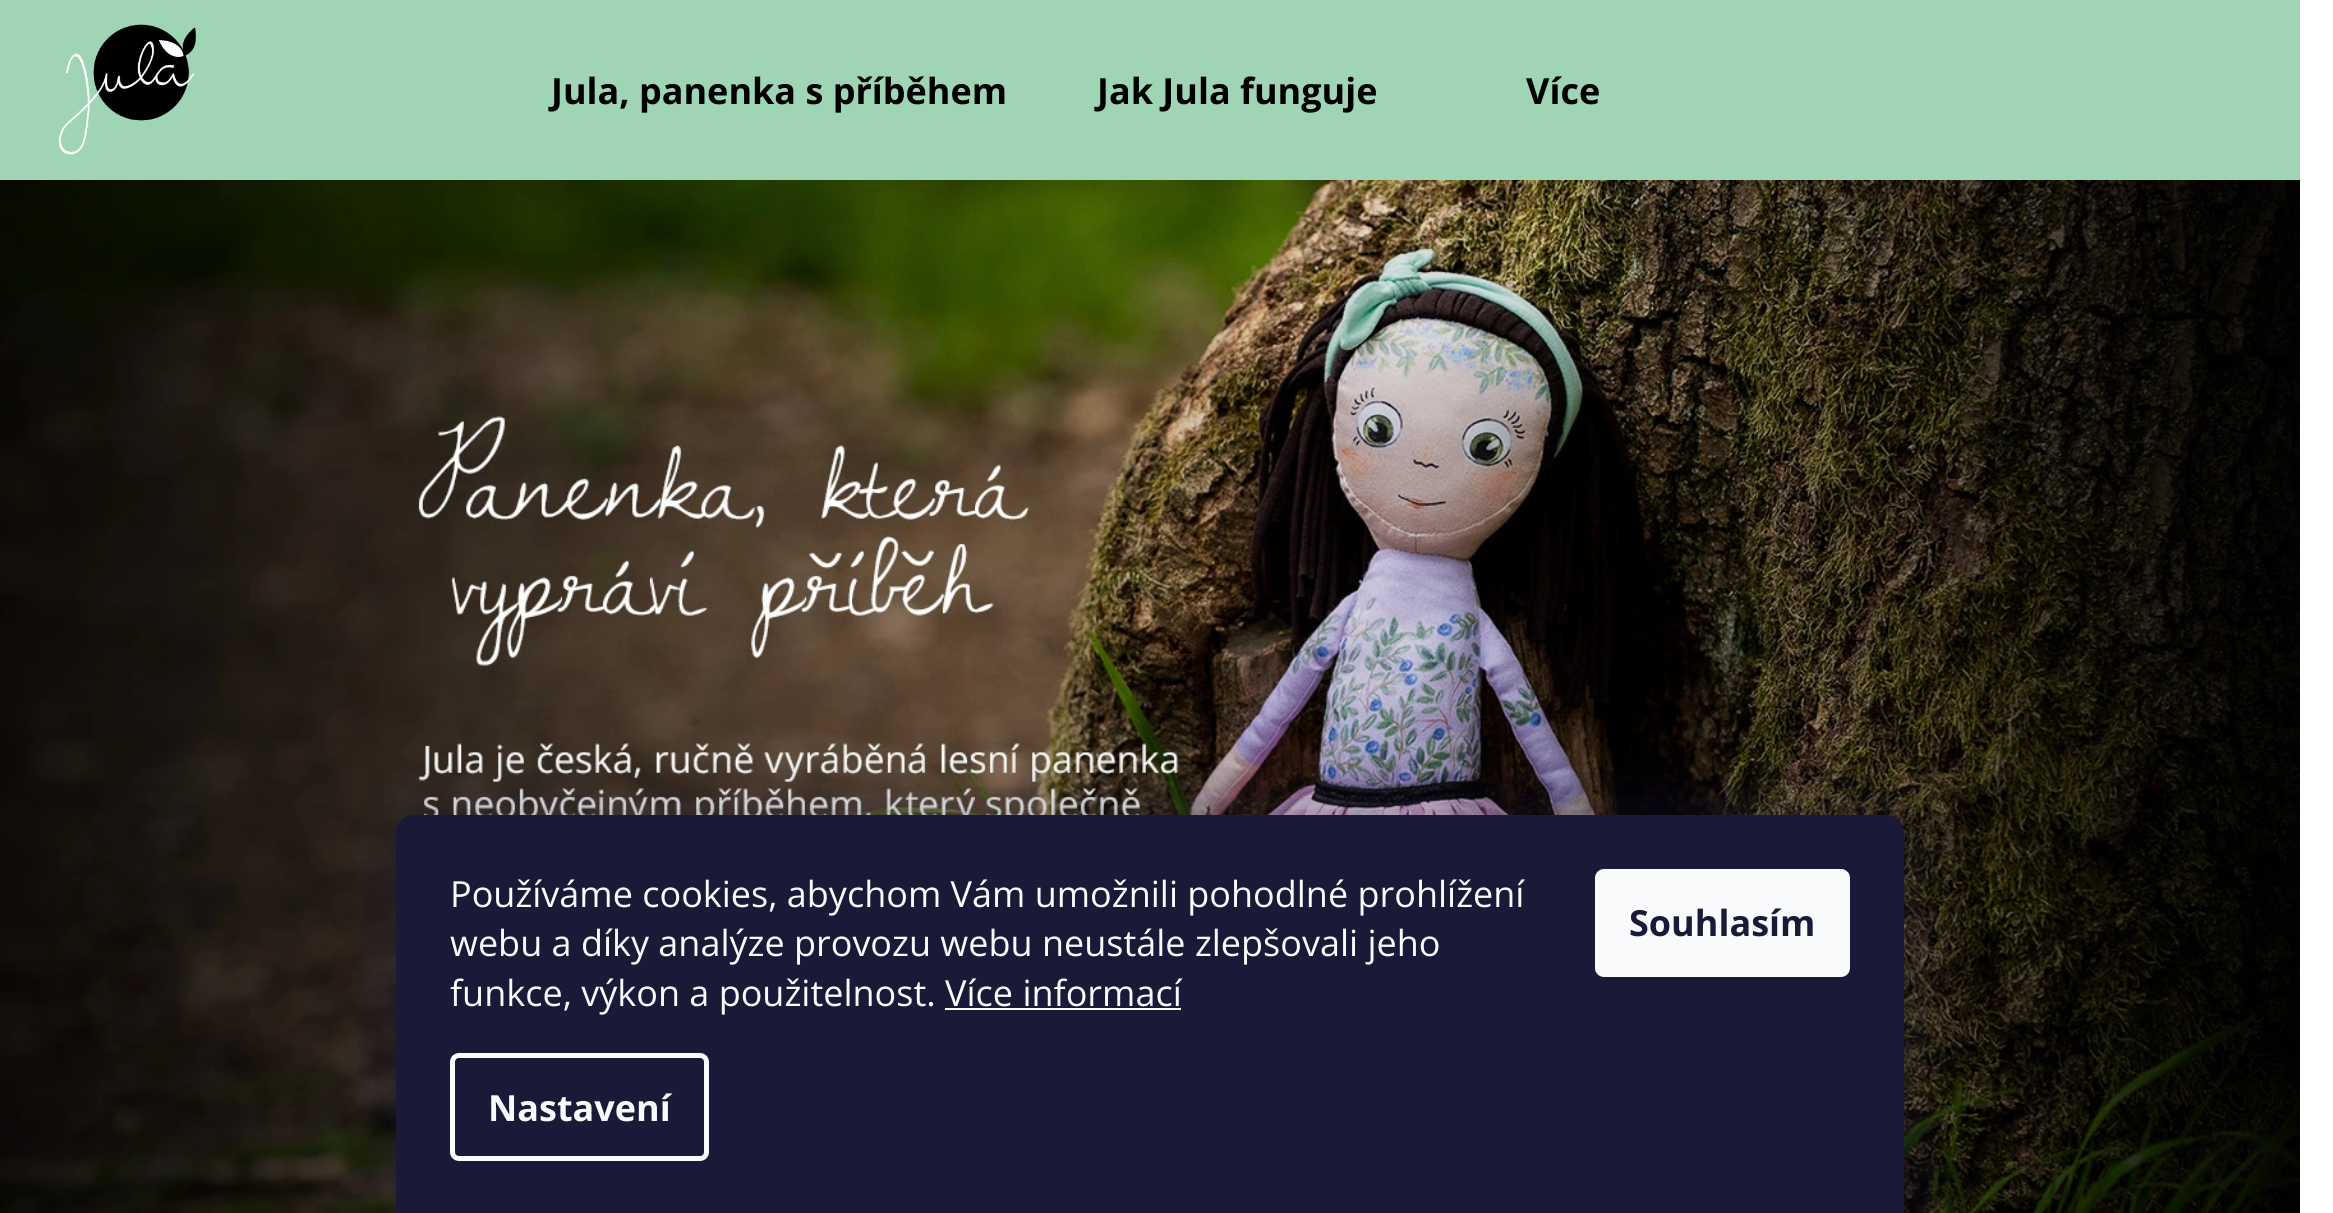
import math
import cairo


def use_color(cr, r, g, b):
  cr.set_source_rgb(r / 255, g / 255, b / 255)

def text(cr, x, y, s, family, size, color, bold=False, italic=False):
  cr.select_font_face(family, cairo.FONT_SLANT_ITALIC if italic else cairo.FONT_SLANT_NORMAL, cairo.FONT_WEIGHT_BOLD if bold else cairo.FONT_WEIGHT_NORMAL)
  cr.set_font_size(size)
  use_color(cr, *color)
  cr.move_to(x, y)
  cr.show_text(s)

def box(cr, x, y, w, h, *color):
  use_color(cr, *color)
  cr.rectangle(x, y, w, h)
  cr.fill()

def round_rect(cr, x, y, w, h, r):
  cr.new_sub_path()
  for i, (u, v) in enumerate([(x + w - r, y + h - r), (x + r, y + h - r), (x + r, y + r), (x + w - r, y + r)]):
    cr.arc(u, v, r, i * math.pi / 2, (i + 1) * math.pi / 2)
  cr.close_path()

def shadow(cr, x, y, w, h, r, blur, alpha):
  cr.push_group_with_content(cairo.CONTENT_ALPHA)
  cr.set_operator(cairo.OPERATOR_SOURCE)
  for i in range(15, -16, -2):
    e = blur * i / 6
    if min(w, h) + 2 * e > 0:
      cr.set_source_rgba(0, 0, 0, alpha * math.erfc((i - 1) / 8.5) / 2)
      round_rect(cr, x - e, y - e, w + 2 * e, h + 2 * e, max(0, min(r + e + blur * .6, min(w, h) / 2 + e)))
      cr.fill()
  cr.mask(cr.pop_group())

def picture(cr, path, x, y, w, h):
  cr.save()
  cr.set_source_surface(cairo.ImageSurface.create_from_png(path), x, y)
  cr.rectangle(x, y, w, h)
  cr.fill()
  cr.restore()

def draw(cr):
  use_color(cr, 255, 255, 255)
  cr.paint()
  box(cr, 0, 0, 2300, 180, 159, 212, 180)
  picture(cr, "img_01.png", 58, 24, 138, 131)
  picture(cr, "img_02.png", 0, 180, 2300, 1033)
  use_color(cr, 27, 25, 57)
  shadow(cr, 396, 815, 1508, 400, 18, 34, 0.5)
  use_color(cr, 26, 25, 55)
  cr.new_path()
  cr.move_to(414, 815)
  cr.line_to(1886, 815)
  cr.curve_to(1896, 815, 1904, 823, 1904, 833)
  cr.line_to(1904, 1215)
  cr.line_to(396, 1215)
  cr.line_to(396, 833)
  cr.curve_to(396, 823, 404, 815, 414, 815)
  cr.close_path()
  cr.fill()
  box(cr, 945, 1008, 236, 2, 248, 250, 251)
  round_rect(cr, 452.5, 1055.5, 254, 103, 6.5)
  cr.set_line_width(5)
  cr.stroke()
  round_rect(cr, 1595, 869, 255, 108, 9)
  cr.fill()
  text(cr, 551, 104, "Jula, panenka s příběhem", "Open Sans", 36, (0, 0, 0), bold=True)
  text(cr, 1097, 104, "Jak Jula funguje", "Open Sans", 36, (0, 0, 0), bold=True)
  text(cr, 1526, 104, "Více", "Open Sans", 36, (0, 0, 0), bold=True)
  text(cr, 450, 907, "Používáme cookies, abychom Vám umožnili pohodlné prohlížení", "Open Sans", 36, (248, 250, 251))
  text(cr, 450, 956, "webu a díky analýze provozu webu neustále zlepšovali jeho", "Open Sans", 36, (248, 250, 251))
  text(cr, 450, 1006, "funkce, výkon a použitelnost. Více informací", "Open Sans", 36, (248, 250, 251))
  text(cr, 488, 1121, "Nastavení", "Open Sans", 36, (248, 250, 251), bold=True)
  text(cr, 1629, 936, "Souhlasím", "Open Sans", 36, (26, 25, 55), bold=True)


surface = cairo.ImageSurface(cairo.FORMAT_RGB24, 2333, 1213)
cr = cairo.Context(surface)
options = cairo.FontOptions()
options.set_hint_metrics(cairo.HINT_METRICS_OFF)
options.set_hint_style(cairo.HINT_STYLE_NONE)
cr.set_font_options(options)
cr.set_miter_limit(4)
draw(cr)
surface.write_to_png("out.png")
